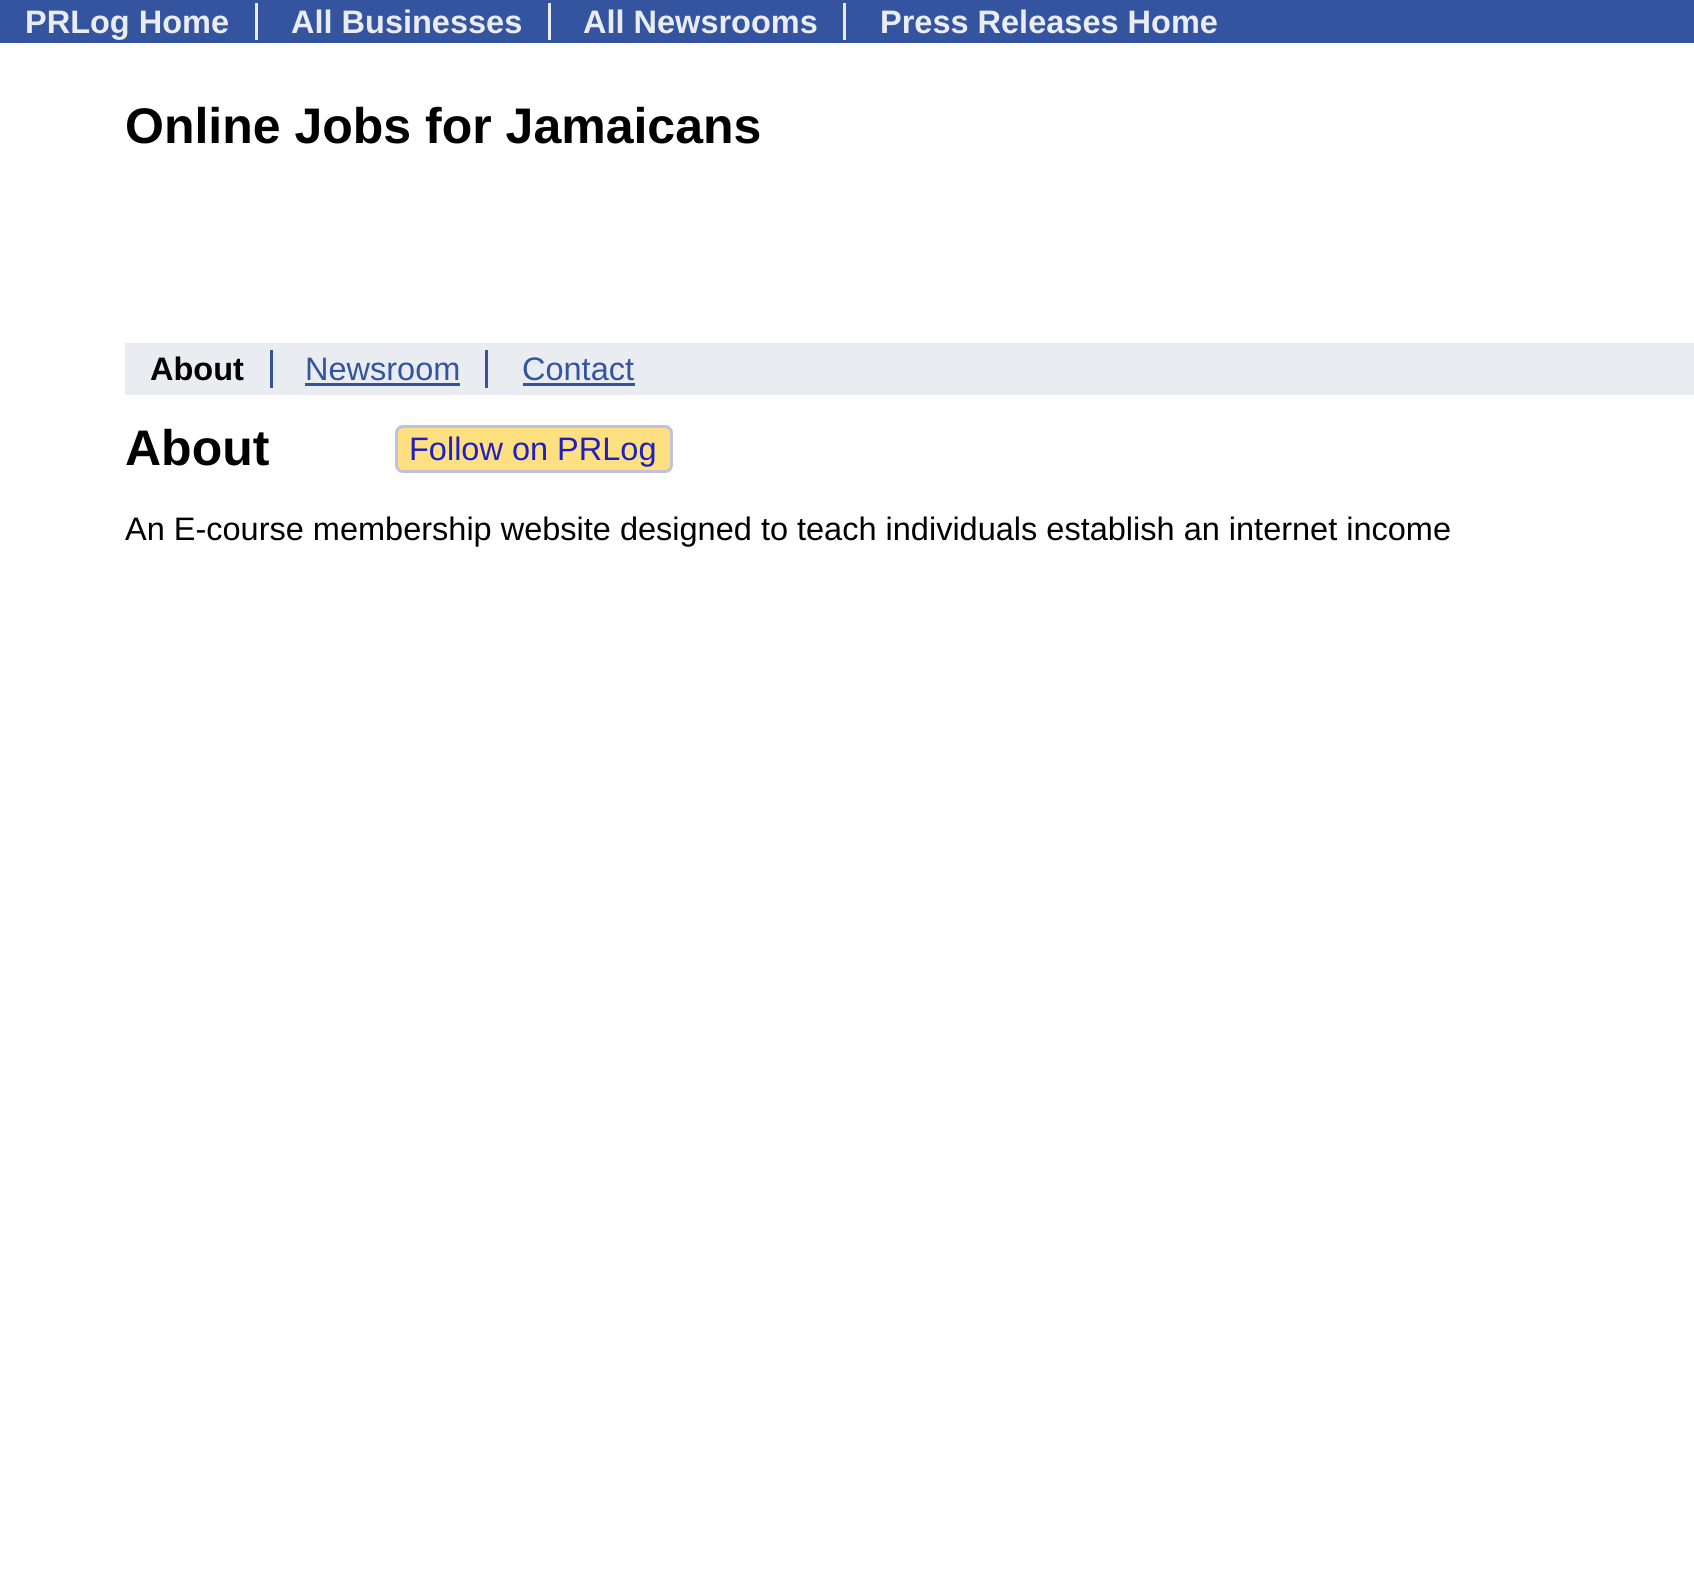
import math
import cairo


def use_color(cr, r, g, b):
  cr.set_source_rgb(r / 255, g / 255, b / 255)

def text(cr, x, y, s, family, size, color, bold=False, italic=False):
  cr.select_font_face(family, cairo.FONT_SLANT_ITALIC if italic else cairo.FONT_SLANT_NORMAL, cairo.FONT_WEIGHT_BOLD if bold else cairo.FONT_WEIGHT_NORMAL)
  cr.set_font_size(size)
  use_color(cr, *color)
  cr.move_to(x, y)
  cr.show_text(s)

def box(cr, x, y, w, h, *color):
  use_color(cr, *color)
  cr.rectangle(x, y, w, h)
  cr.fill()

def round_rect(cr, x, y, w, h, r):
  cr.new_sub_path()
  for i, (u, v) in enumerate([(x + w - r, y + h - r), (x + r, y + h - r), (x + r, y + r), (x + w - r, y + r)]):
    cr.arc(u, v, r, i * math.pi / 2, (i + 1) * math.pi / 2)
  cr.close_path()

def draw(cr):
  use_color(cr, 255, 255, 255)
  cr.paint()
  box(cr, 0, 0, 1694, 43, 52, 84, 160)
  box(cr, 255, 3, 3, 37, 233, 237, 242)
  box(cr, 548, 3, 3, 37, 233, 237, 242)
  box(cr, 843, 3, 3, 37, 233, 237, 242)
  box(cr, 125, 343, 1569, 52, 233, 237, 242)
  box(cr, 270, 350, 3, 38, 52, 84, 160)
  box(cr, 485, 350, 3, 38, 52, 84, 160)
  box(cr, 305, 383, 155, 3, 52, 84, 160)
  box(cr, 523, 383, 112, 3, 52, 84, 160)
  use_color(cr, 255, 224, 128)
  round_rect(cr, 396.5, 426.5, 275, 45, 6.5)
  cr.fill_preserve()
  use_color(cr, 192, 192, 224)
  cr.set_line_width(3)
  cr.stroke()
  text(cr, 25, 33, "PRLog Home", "Liberation Sans", 32.5, (233, 237, 242), bold=True)
  text(cr, 291, 33, "All Businesses", "Liberation Sans", 32.5, (233, 237, 242), bold=True)
  text(cr, 583, 33, "All Newsrooms", "Liberation Sans", 32.5, (233, 237, 242), bold=True)
  text(cr, 880, 33, "Press Releases Home", "Liberation Sans", 32.5, (233, 237, 242), bold=True)
  text(cr, 125, 143, "Online Jobs for Jamaicans", "Liberation Sans", 50, (0, 0, 0), bold=True)
  text(cr, 150, 380, "About", "Liberation Sans", 32.5, (0, 0, 0), bold=True)
  text(cr, 305, 380, "Newsroom", "Liberation Sans", 32.5, (52, 84, 160))
  text(cr, 522, 380, "Contact", "Liberation Sans", 32.5, (52, 84, 160))
  text(cr, 125, 465, "About", "Liberation Sans", 50, (0, 0, 0), bold=True)
  text(cr, 409, 460, "Follow on PRLog", "Liberation Sans", 32.5, (32, 32, 192))
  text(cr, 125, 540, "An E-course membership website designed to teach individuals establish an internet income", "Liberation Sans", 32.5, (0, 0, 0))


surface = cairo.ImageSurface(cairo.FORMAT_RGB24, 1694, 1580)
cr = cairo.Context(surface)
options = cairo.FontOptions()
options.set_hint_metrics(cairo.HINT_METRICS_OFF)
options.set_hint_style(cairo.HINT_STYLE_NONE)
cr.set_font_options(options)
cr.set_miter_limit(4)
draw(cr)
surface.write_to_png("out.png")
